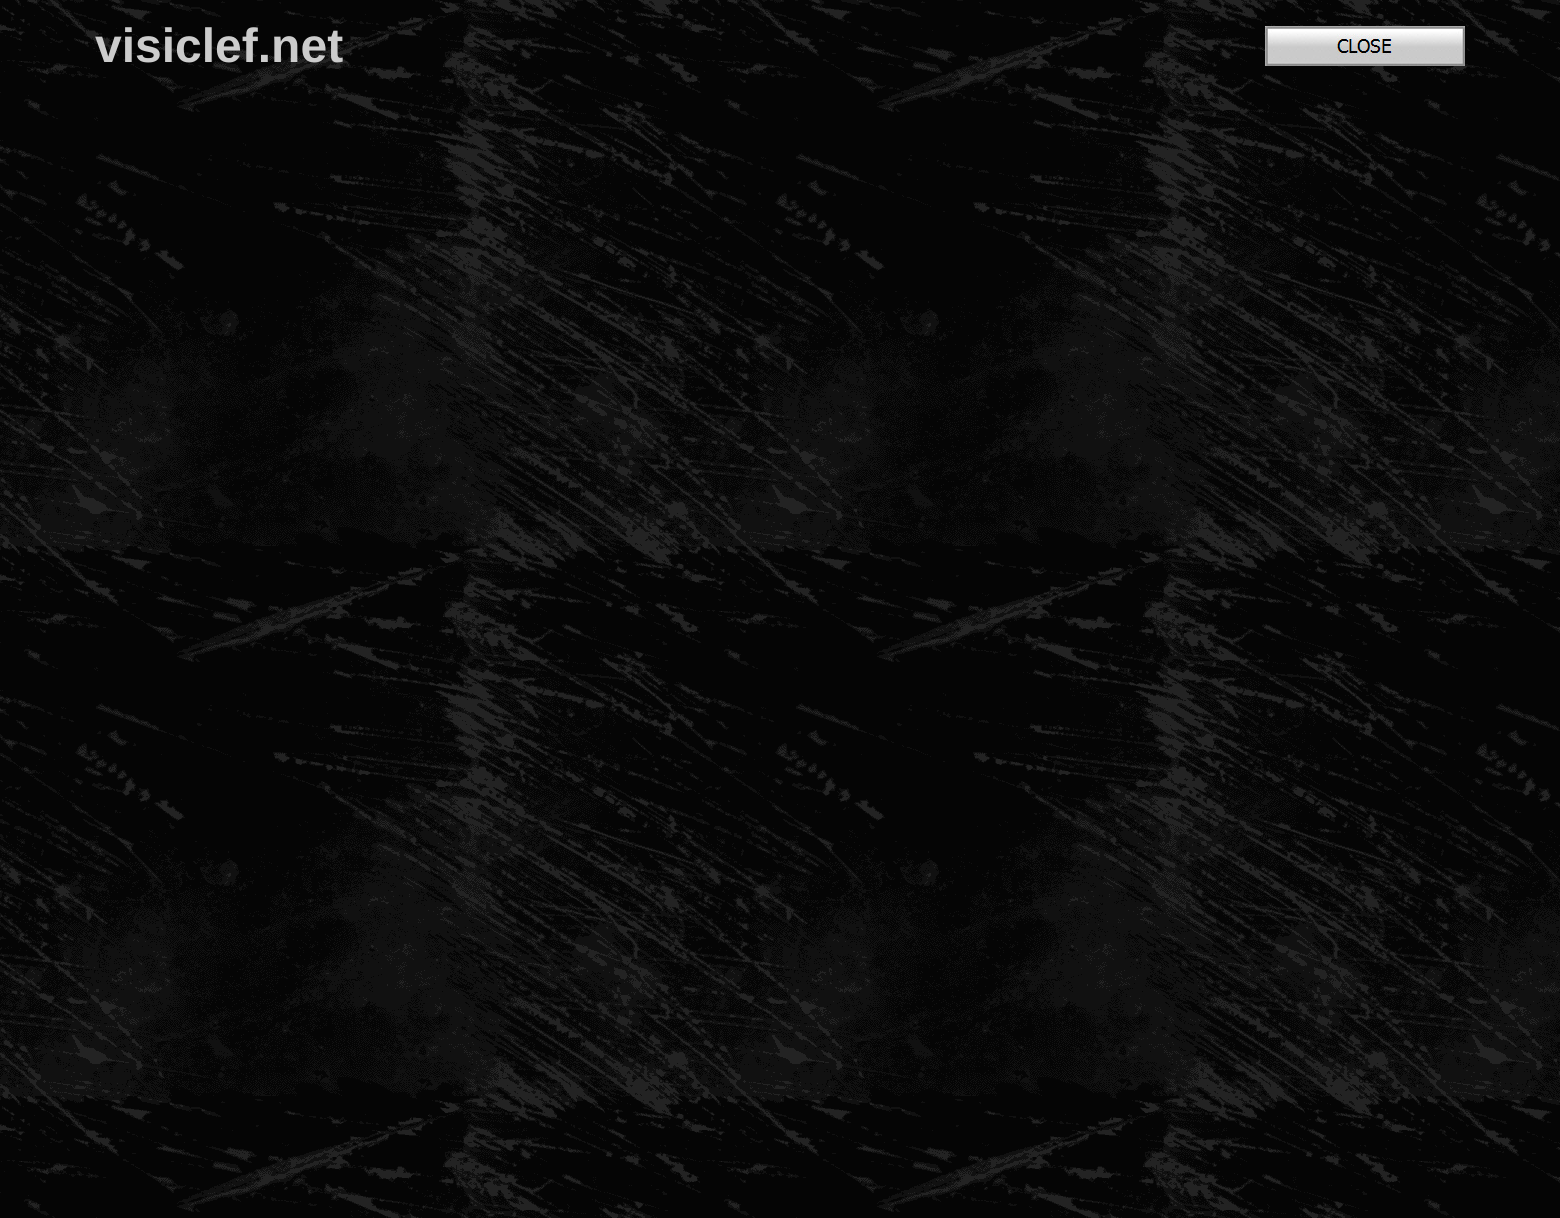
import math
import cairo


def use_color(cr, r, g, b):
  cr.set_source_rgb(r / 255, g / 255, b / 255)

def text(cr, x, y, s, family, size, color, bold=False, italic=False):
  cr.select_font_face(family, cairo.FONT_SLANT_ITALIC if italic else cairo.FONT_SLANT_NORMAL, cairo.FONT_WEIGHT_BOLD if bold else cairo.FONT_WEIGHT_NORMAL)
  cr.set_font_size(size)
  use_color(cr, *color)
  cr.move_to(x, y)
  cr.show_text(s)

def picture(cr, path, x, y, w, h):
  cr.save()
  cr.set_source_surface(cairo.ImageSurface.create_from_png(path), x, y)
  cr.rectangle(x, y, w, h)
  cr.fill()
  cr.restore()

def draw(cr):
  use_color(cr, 255, 255, 255)
  cr.paint()
  picture(cr, "img_01.png", 0, 0, 1560, 1218)
  picture(cr, "img_02.png", 1265, 26, 200, 40)
  text(cr, 95, 62, "visiclef.net", "Liberation Sans", 48, (204, 204, 204), bold=True)


surface = cairo.ImageSurface(cairo.FORMAT_RGB24, 1560, 1218)
cr = cairo.Context(surface)
options = cairo.FontOptions()
options.set_hint_metrics(cairo.HINT_METRICS_OFF)
options.set_hint_style(cairo.HINT_STYLE_NONE)
cr.set_font_options(options)
cr.set_miter_limit(4)
draw(cr)
surface.write_to_png("out.png")
